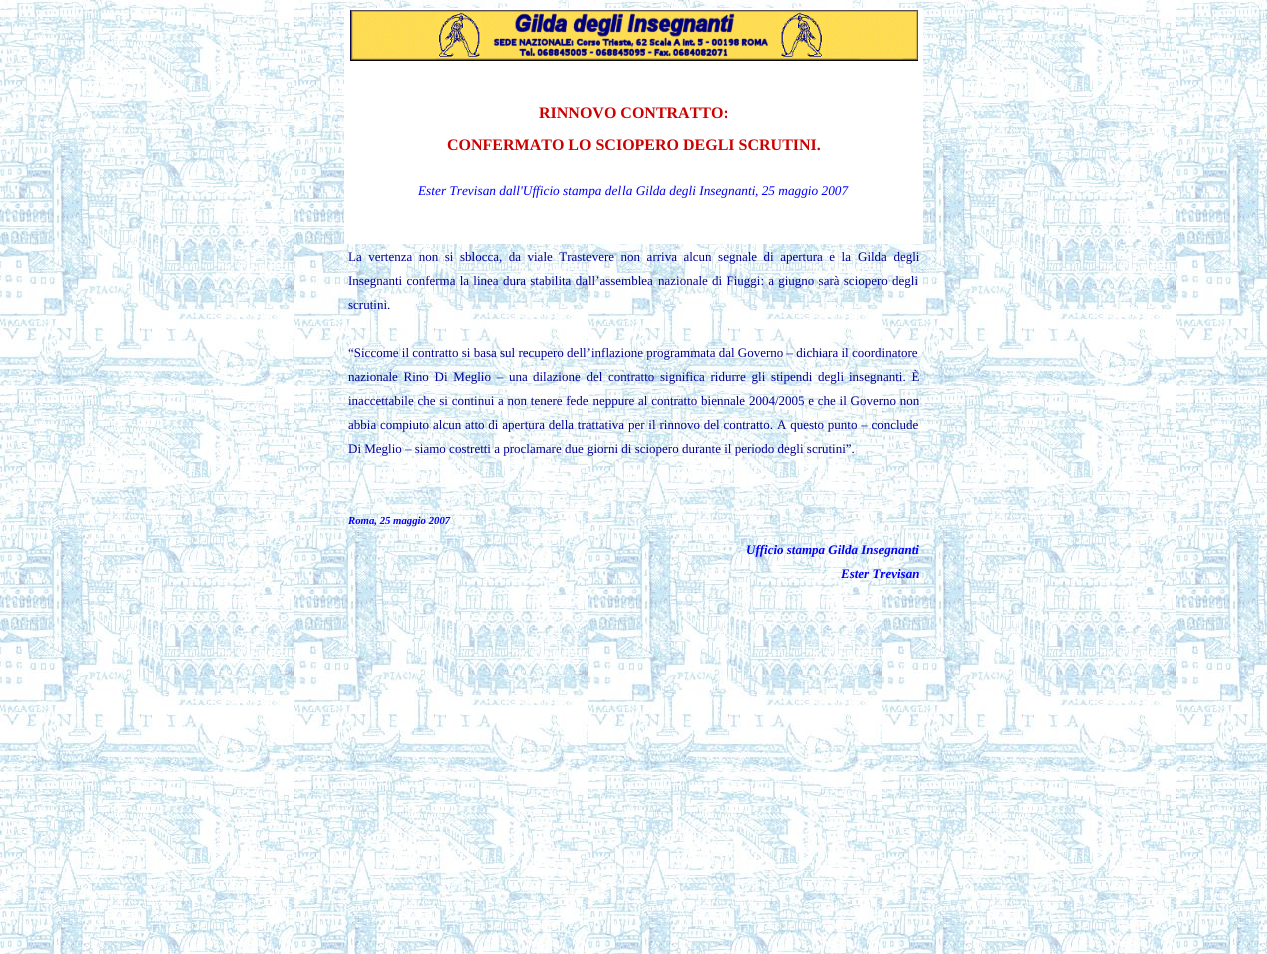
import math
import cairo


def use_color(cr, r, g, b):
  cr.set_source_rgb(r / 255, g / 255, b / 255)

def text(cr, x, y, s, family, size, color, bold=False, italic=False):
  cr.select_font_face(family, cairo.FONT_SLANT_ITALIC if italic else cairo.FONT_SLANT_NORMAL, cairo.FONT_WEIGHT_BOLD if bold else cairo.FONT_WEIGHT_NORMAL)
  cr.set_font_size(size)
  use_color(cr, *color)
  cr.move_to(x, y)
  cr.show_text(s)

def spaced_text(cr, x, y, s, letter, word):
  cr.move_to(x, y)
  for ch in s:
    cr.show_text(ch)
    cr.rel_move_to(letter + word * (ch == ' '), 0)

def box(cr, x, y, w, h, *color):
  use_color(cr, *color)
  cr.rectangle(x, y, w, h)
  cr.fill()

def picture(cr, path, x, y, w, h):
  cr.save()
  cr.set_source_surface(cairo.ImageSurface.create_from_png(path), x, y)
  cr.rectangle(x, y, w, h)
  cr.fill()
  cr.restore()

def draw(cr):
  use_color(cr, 255, 255, 255)
  cr.paint()
  picture(cr, "img_01.png", 0, 0, 1267, 954)
  box(cr, 344, 8, 579, 236, 255, 255, 255)
  picture(cr, "img_02.png", 350, 10, 568, 51)
  text(cr, 539, 118, "RINNOVO CONTRATTO:", "Liberation Serif", 16, (204, 0, 0), bold=True)
  text(cr, 447, 150, "CONFERMATO LO SCIOPERO DEGLI SCRUTINI.", "Liberation Serif", 16, (204, 0, 0), bold=True)
  text(cr, 418, 195, "Ester Trevisan dall'Ufficio stampa del", "Liberation Serif", 13.3, (0, 0, 255), italic=True)
  text(cr, 622, 195, "la Gilda degli Insegnanti", "Liberation Serif", 13.3, (0, 0, 238), italic=True)
  text(cr, 755, 195, ", 25 maggio 2007", "Liberation Serif", 13.3, (0, 0, 255), italic=True)
  cr.select_font_face("Liberation Serif")
  cr.set_font_size(13)
  use_color(cr, 0, 0, 153)
  spaced_text(cr, 348, 261, "La vertenza non si", 0, 3.25)
  spaced_text(cr, 460, 261, "sblocca, da viale Trastevere non arriva alcun segnale di apertura e la", 0, 3.25)
  spaced_text(cr, 858, 261, "Gilda degli", 0, 3.25)
  spaced_text(cr, 348, 285, "Insegnanti conferma la linea dura stabilita dall’assemblea", 0, 1)
  spaced_text(cr, 658, 285, "nazionale di Fiuggi: a giugno sarà sciopero degli", 0, 1)
  text(cr, 348, 309, "scrutini.", "Liberation Serif", 13, (0, 0, 153))
  text(cr, 348, 357, "“Siccome il contratto si basa sul recupero dell’inflazione programmata dal Governo – dichiara il coordinatore", "Liberation Serif", 13, (0, 0, 153))
  spaced_text(cr, 348, 381, "nazionale Rino Di Meglio – una", 0, 2.5)
  spaced_text(cr, 533, 381, "dilazione del contratto significa ridurre gli stipendi degli", 0, 2.5)
  spaced_text(cr, 849, 381, "insegnanti. È", 0, 2.5)
  spaced_text(cr, 348, 405, "inaccettabile che si continui a non tenere fede neppure", 0, 0.5)
  spaced_text(cr, 638, 405, "al contratto biennale 2004/2005 e che il Governo non", 0, 0.5)
  spaced_text(cr, 348, 429, "abbia compiuto", 0, 0.5)
  spaced_text(cr, 433, 429, "alcun atto di apertura della trattativa per il rinnovo del contratto.", 0, 0.6)
  spaced_text(cr, 777, 429, "A questo punto – conclude", 0, 0.5)
  text(cr, 348, 453, "Di Meglio – siamo costretti a proclamare due giorni di sciopero durante il periodo degli scrutini”.", "Liberation Serif", 13, (0, 0, 153))
  text(cr, 348, 524, "Roma, 25 maggio 2007", "Liberation Serif", 10.75, (0, 0, 255), bold=True, italic=True)
  text(cr, 746, 554, "Ufficio stampa Gilda Insegnanti", "Liberation Serif", 13, (0, 0, 255), bold=True, italic=True)
  text(cr, 841, 578, "Ester Trevisan", "Liberation Serif", 13, (0, 0, 255), bold=True, italic=True)


surface = cairo.ImageSurface(cairo.FORMAT_RGB24, 1267, 954)
cr = cairo.Context(surface)
options = cairo.FontOptions()
options.set_hint_metrics(cairo.HINT_METRICS_OFF)
options.set_hint_style(cairo.HINT_STYLE_NONE)
cr.set_font_options(options)
cr.set_miter_limit(4)
draw(cr)
surface.write_to_png("out.png")
